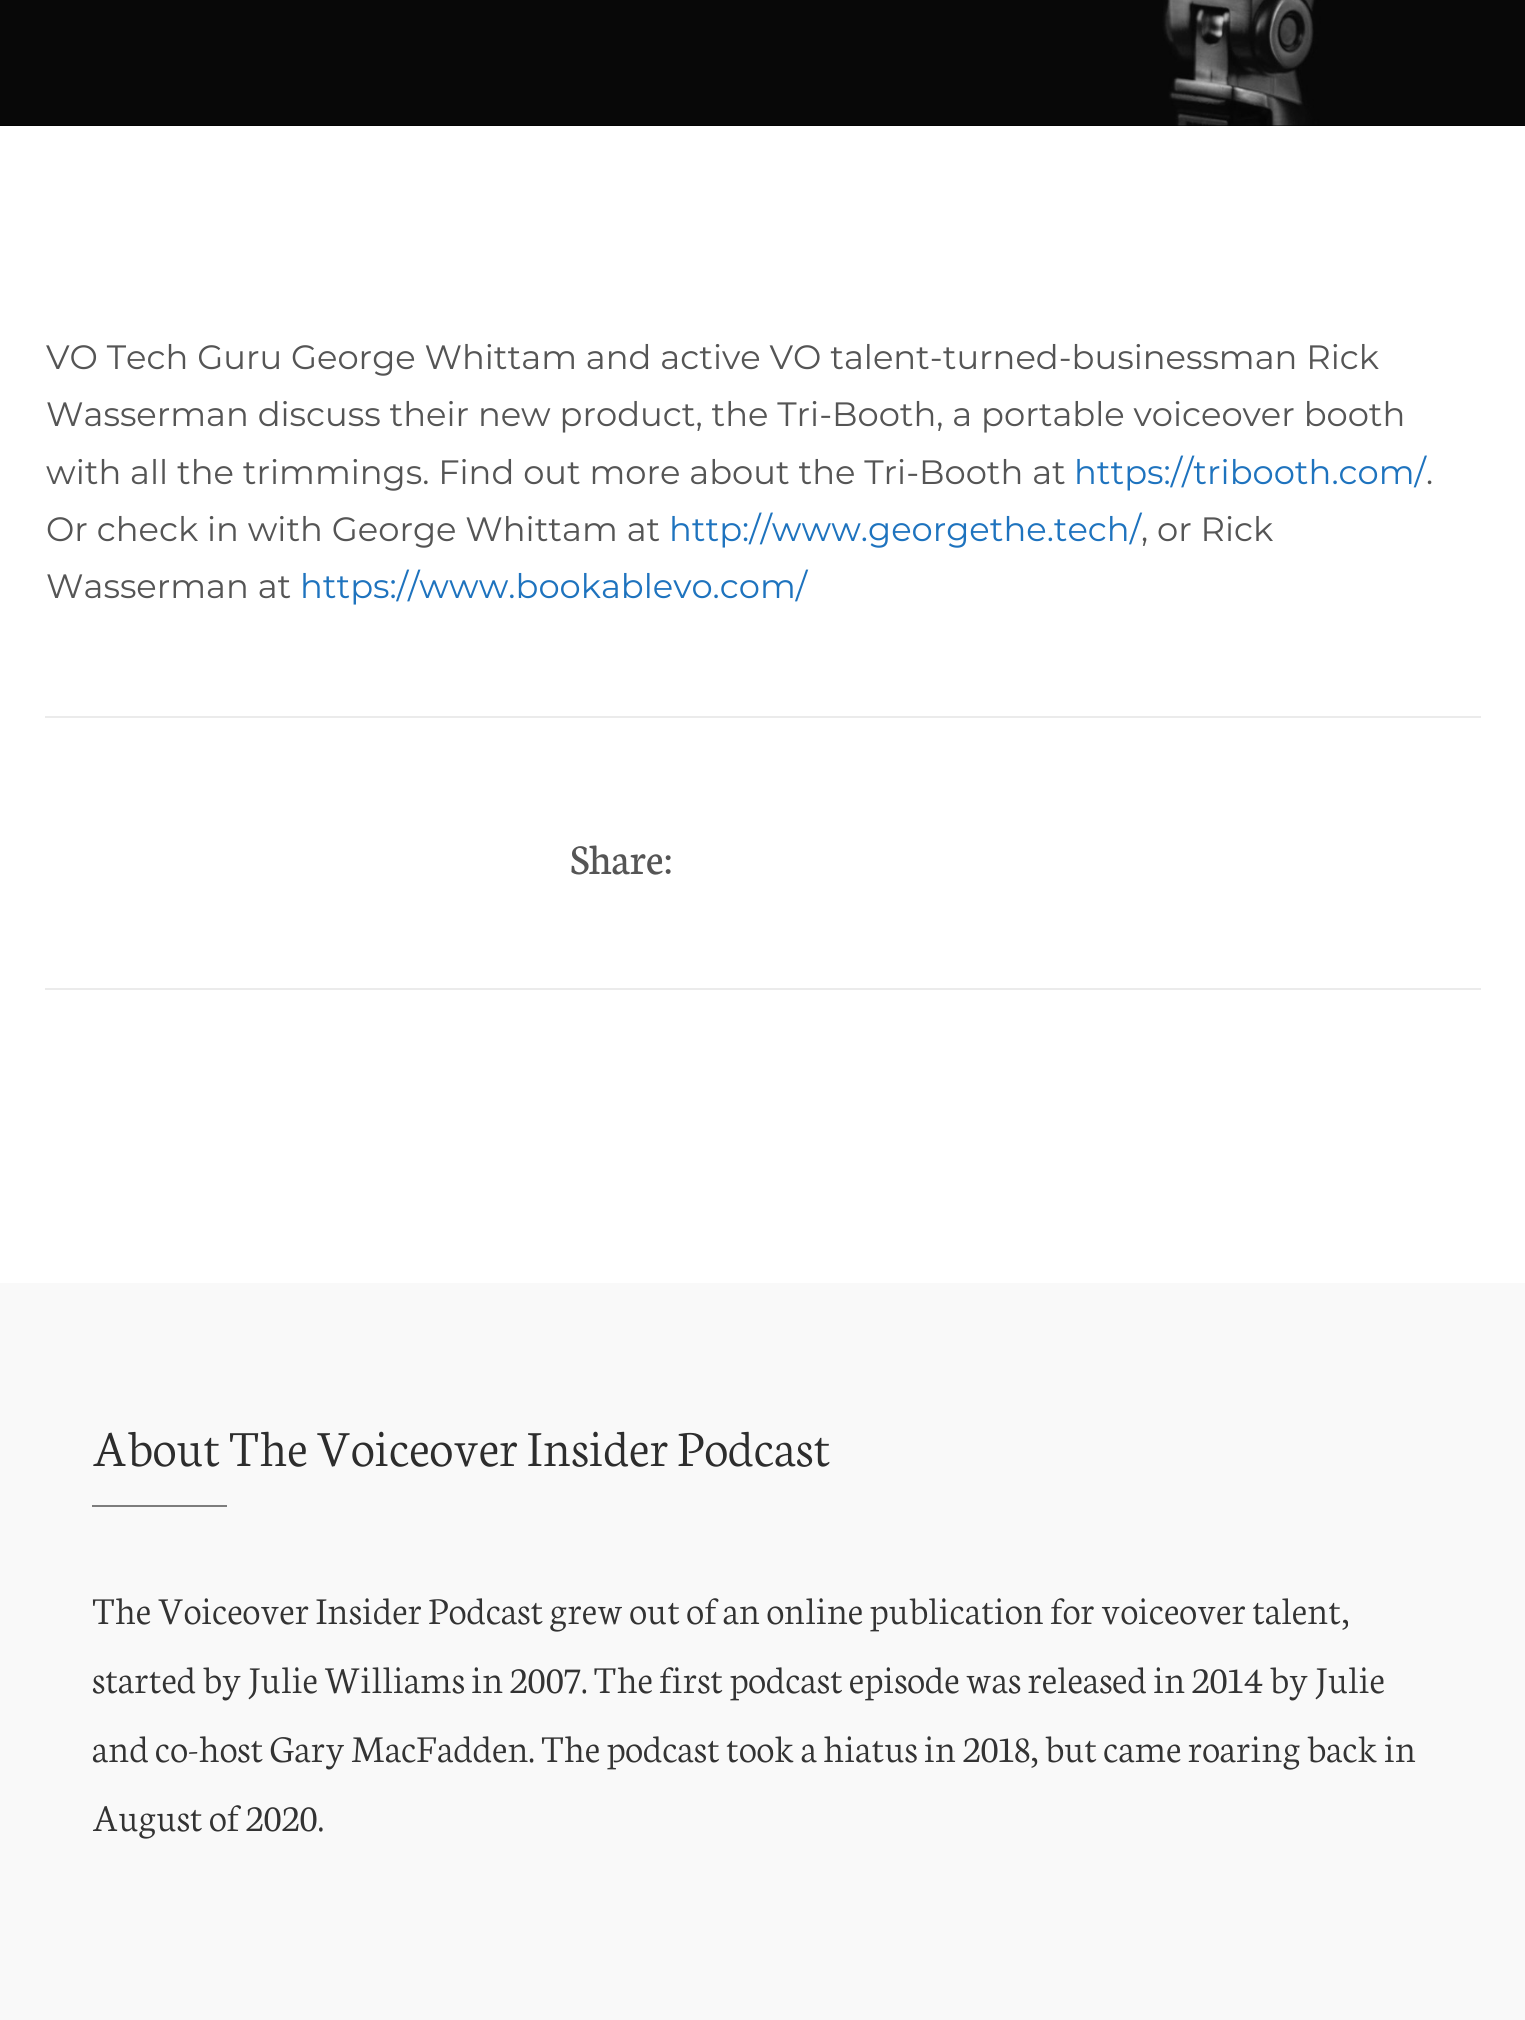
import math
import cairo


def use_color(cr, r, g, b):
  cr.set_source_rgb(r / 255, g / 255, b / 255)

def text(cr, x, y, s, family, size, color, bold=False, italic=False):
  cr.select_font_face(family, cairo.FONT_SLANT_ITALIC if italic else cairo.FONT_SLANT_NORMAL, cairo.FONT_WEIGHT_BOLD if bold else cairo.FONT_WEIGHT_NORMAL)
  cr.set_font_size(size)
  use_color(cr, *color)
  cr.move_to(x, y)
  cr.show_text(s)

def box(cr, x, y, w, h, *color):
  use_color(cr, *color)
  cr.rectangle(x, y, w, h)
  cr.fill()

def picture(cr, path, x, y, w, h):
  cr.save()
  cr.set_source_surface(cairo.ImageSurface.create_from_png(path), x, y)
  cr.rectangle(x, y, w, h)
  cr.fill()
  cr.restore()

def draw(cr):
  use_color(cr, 255, 255, 255)
  cr.paint()
  box(cr, 0, 125, 1525, 1, 0, 0, 0)
  picture(cr, "img_01.png", 0, 0, 1525, 126)
  box(cr, 45, 716, 1436, 2, 235, 235, 235)
  box(cr, 45, 988, 1436, 2, 235, 235, 235)
  box(cr, 0, 1283, 1525, 737, 249, 249, 249)
  box(cr, 92, 1505, 135, 2, 125, 125, 125)
  text(cr, 46, 369, "VO Tech Guru George Whittam and active VO talent-turned-businessman Rick", "Montserrat Thin", 33.75, (85, 85, 85))
  text(cr, 46, 426, "Wasserman discuss their new product, the Tri-Booth, a portable voiceover booth", "Montserrat Thin", 33.75, (85, 85, 85))
  text(cr, 46, 484, "with all the trimmings. Find out more about the Tri-Booth at", "Montserrat Thin", 33.75, (85, 85, 85))
  text(cr, 1074, 484, "https://tribooth.com/", "Montserrat Thin", 33.75, (30, 115, 190))
  text(cr, 1426, 484, ".", "Montserrat Thin", 33.75, (85, 85, 85))
  text(cr, 46, 541, "Or check in with George Whittam at", "Montserrat Thin", 33.75, (85, 85, 85))
  text(cr, 669, 541, "http://www.georgethe.tech/", "Montserrat Thin", 33.75, (30, 115, 190))
  text(cr, 1141, 541, ", or Rick", "Montserrat Thin", 33.75, (85, 85, 85))
  text(cr, 46, 598, "Wasserman at", "Montserrat Thin", 33.75, (85, 85, 85))
  text(cr, 300, 598, "https://www.bookablevo.com/", "Montserrat Thin", 33.75, (30, 115, 190))
  text(cr, 570, 874, "Share:", "Neuton", 45, (85, 85, 85))
  text(cr, 92, 1466, "About The Voiceover Insider Podcast", "Neuton Light", 54, (45, 45, 45))
  text(cr, 92, 1624, "The Voiceover Insider Podcast grew out of an online publication for voiceover talent,", "Neuton Light", 40.5, (51, 51, 51))
  text(cr, 92, 1693, "started by Julie Williams in 2007. The first podcast episode was released in 2014 by Julie", "Neuton Light", 40.5, (51, 51, 51))
  text(cr, 92, 1762, "and co-host Gary MacFadden. The podcast took a hiatus in 2018, but came roaring back in", "Neuton Light", 40.5, (51, 51, 51))
  text(cr, 92, 1831, "August of 2020.", "Neuton Light", 40.5, (51, 51, 51))


surface = cairo.ImageSurface(cairo.FORMAT_RGB24, 1525, 2020)
cr = cairo.Context(surface)
options = cairo.FontOptions()
options.set_hint_metrics(cairo.HINT_METRICS_OFF)
options.set_hint_style(cairo.HINT_STYLE_NONE)
cr.set_font_options(options)
cr.set_miter_limit(4)
draw(cr)
surface.write_to_png("out.png")
